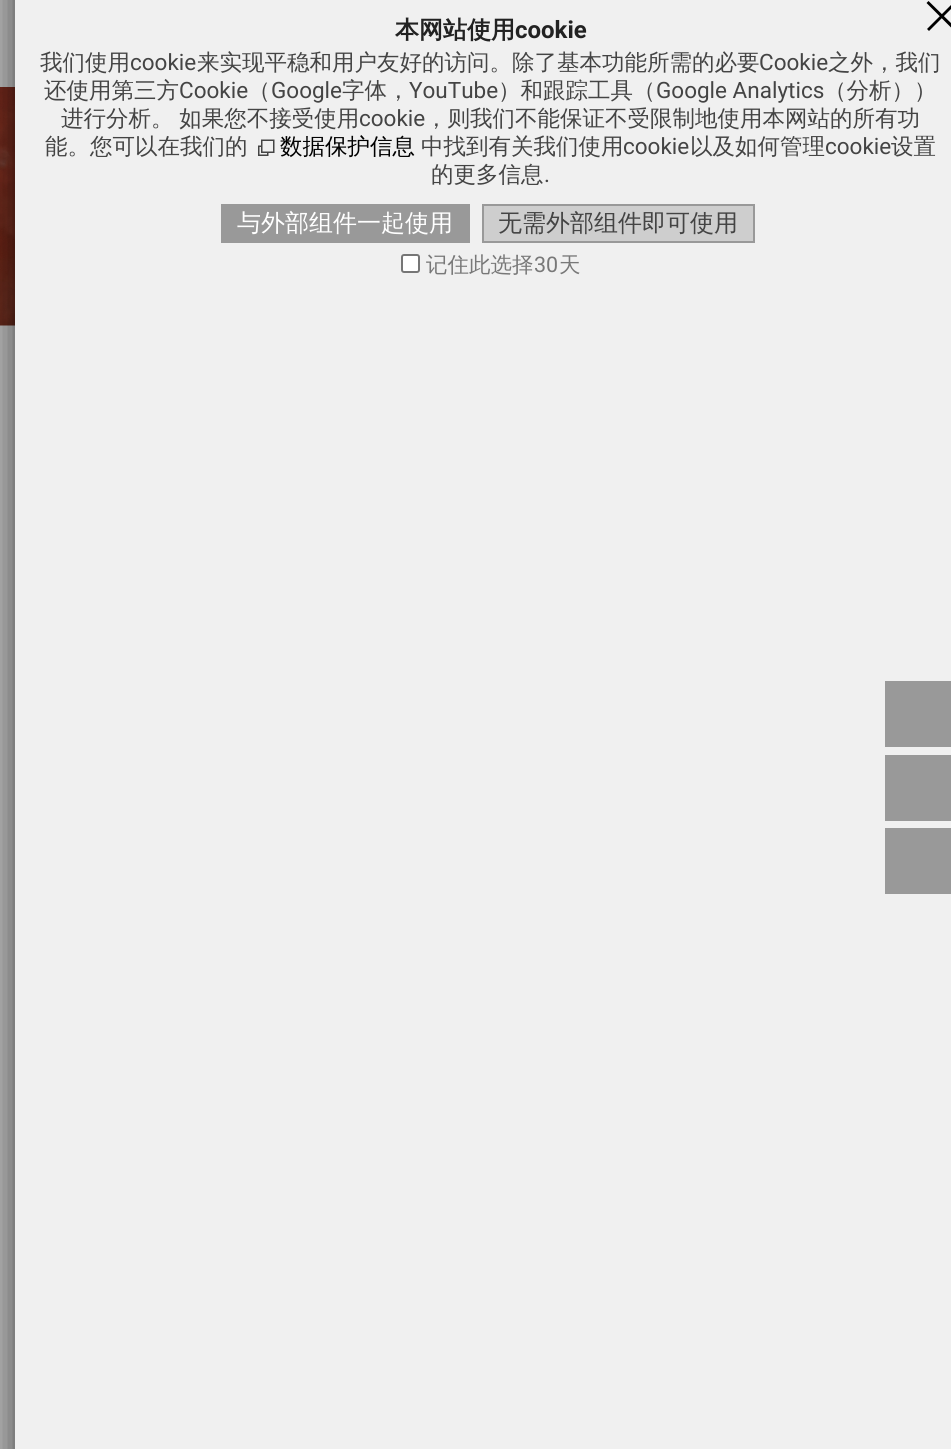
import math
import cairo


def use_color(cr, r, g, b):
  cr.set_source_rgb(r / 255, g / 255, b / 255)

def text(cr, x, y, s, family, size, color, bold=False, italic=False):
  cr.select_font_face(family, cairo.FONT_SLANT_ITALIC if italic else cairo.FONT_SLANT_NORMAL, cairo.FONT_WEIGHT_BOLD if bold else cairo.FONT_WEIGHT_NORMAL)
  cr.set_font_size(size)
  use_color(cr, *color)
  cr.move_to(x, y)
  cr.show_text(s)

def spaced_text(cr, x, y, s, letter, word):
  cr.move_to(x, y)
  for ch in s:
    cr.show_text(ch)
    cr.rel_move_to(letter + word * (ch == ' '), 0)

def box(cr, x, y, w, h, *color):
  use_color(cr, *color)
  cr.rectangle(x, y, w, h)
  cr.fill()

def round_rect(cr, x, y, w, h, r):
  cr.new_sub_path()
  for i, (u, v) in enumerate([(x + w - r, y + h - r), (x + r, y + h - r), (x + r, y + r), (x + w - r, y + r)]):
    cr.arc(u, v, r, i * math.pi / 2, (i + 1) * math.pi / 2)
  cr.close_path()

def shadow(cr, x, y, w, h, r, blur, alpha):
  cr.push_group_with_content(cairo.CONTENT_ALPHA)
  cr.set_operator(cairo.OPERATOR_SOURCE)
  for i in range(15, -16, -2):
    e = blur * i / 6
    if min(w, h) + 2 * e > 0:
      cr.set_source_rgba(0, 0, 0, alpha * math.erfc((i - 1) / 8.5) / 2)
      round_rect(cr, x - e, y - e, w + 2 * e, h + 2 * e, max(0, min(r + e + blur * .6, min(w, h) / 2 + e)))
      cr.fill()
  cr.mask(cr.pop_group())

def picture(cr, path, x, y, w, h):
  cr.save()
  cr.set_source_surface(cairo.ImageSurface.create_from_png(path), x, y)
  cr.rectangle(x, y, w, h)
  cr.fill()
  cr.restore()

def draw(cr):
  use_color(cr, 179, 179, 179)
  cr.paint()
  picture(cr, "img_02.png", 0, 87, 15, 239)
  use_color(cr, 0, 0, 0)
  shadow(cr, 15, -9, 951, 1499, 0, 15, 0.6)
  box(cr, 15, 0, 936, 1449, 240, 240, 240)
  use_color(cr, 0, 0, 0)
  cr.new_path()
  cr.move_to(928.5, 1)
  cr.line_to(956.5, 28.5)
  cr.line_to(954, 30.5)
  cr.line_to(926.5, 3)
  cr.close_path()
  cr.fill()
  cr.new_path()
  cr.move_to(927, 29)
  cr.line_to(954.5, 1.5)
  cr.line_to(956.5, 3.5)
  cr.line_to(929, 31)
  cr.close_path()
  cr.fill()
  picture(cr, "img_01.png", 258, 139, 17, 17)
  box(cr, 221, 204, 249, 39, 153, 153, 153)
  use_color(cr, 206, 206, 206)
  cr.rectangle(483, 205, 271, 37)
  cr.fill_preserve()
  use_color(cr, 153, 153, 153)
  cr.stroke()
  use_color(cr, 255, 255, 255)
  round_rect(cr, 402, 255, 17, 17, 2)
  cr.fill_preserve()
  use_color(cr, 118, 118, 118)
  cr.stroke()
  box(cr, 885, 681, 66, 66, 153, 153, 153)
  box(cr, 885, 755, 66, 66, 153, 153, 153)
  box(cr, 885, 828, 66, 66, 153, 153, 153)
  text(cr, 395, 38, "本网站使用", "WenQuanYi Zen Hei", 24, (34, 34, 34), bold=True)
  text(cr, 515, 38, "cookie", "Roboto", 24, (34, 34, 34), bold=True)
  text(cr, 40, 70, "我们使用", "WenQuanYi Zen Hei Medium", 22.5, (68, 68, 68))
  text(cr, 130, 70, "cookie", "Roboto", 22.5, (68, 68, 68))
  text(cr, 197, 70, "来实现平稳和用户友好的访问。除了基本功能所需的必要", "WenQuanYi Zen Hei Medium", 22.5, (68, 68, 68))
  text(cr, 759, 70, "Cookie", "Roboto", 22.5, (68, 68, 68))
  text(cr, 828, 70, "之外，我们", "WenQuanYi Zen Hei Medium", 22.5, (68, 68, 68))
  text(cr, 44, 98, "还使用第三方", "WenQuanYi Zen Hei Medium", 22.5, (68, 68, 68))
  text(cr, 179, 98, "Cookie", "Roboto", 22.5, (68, 68, 68))
  text(cr, 248, 98, "（", "WenQuanYi Zen Hei Medium", 22.5, (68, 68, 68))
  text(cr, 271, 98, "Google", "Roboto", 22.5, (68, 68, 68))
  text(cr, 342, 98, "字体，", "WenQuanYi Zen Hei Medium", 22.5, (68, 68, 68))
  text(cr, 409, 98, "YouTube", "Roboto", 22.5, (68, 68, 68))
  text(cr, 498, 98, "）和跟踪工具（", "WenQuanYi Zen Hei Medium", 22.5, (68, 68, 68))
  text(cr, 656, 98, "Google Analytics", "Roboto", 22.5, (68, 68, 68))
  text(cr, 824, 98, "（分析））", "WenQuanYi Zen Hei Medium", 22.5, (68, 68, 68))
  spaced_text(cr, 61, 126, "进行分析。 如果您不接受使用", 0, -1)
  text(cr, 359, 126, "cookie", "Roboto", 22.5, (68, 68, 68))
  text(cr, 425, 126, "，则我们不能保证不受限制地使用本网站的所有功", "WenQuanYi Zen Hei Medium", 22.5, (68, 68, 68))
  text(cr, 45, 154, "能。您可以在我们的", "WenQuanYi Zen Hei Medium", 22.5, (68, 68, 68))
  text(cr, 280, 154, "数据保护信息", "WenQuanYi Zen Hei Medium", 22.5, (0, 0, 0))
  text(cr, 421, 154, "中找到有关我们使用", "WenQuanYi Zen Hei Medium", 22.5, (68, 68, 68))
  text(cr, 623, 154, "cookie", "Roboto", 22.5, (68, 68, 68))
  text(cr, 690, 154, "以及如何管理", "WenQuanYi Zen Hei Medium", 22.5, (68, 68, 68))
  text(cr, 825, 154, "cookie", "Roboto", 22.5, (68, 68, 68))
  text(cr, 891, 154, "设置", "WenQuanYi Zen Hei Medium", 22.5, (68, 68, 68))
  text(cr, 431, 182, "的更多信息", "WenQuanYi Zen Hei Medium", 22.5, (68, 68, 68))
  text(cr, 544, 182, ".", "Roboto", 22.5, (68, 68, 68))
  text(cr, 237, 231, "与外部组件一起使用", "WenQuanYi Zen Hei Medium", 24, (255, 255, 255))
  text(cr, 498, 231, "无需外部组件即可使用", "WenQuanYi Zen Hei Medium", 24, (68, 68, 68))
  text(cr, 426, 272, "记住此选择", "WenQuanYi Zen Hei Medium", 21.5, (120, 120, 120))
  text(cr, 534, 272, "30", "Roboto", 21.5, (120, 120, 120))
  text(cr, 559, 272, "天", "WenQuanYi Zen Hei Medium", 21.5, (120, 120, 120))


surface = cairo.ImageSurface(cairo.FORMAT_RGB24, 951, 1449)
cr = cairo.Context(surface)
options = cairo.FontOptions()
options.set_hint_metrics(cairo.HINT_METRICS_OFF)
options.set_hint_style(cairo.HINT_STYLE_NONE)
cr.set_font_options(options)
cr.set_miter_limit(4)
draw(cr)
surface.write_to_png("out.png")
